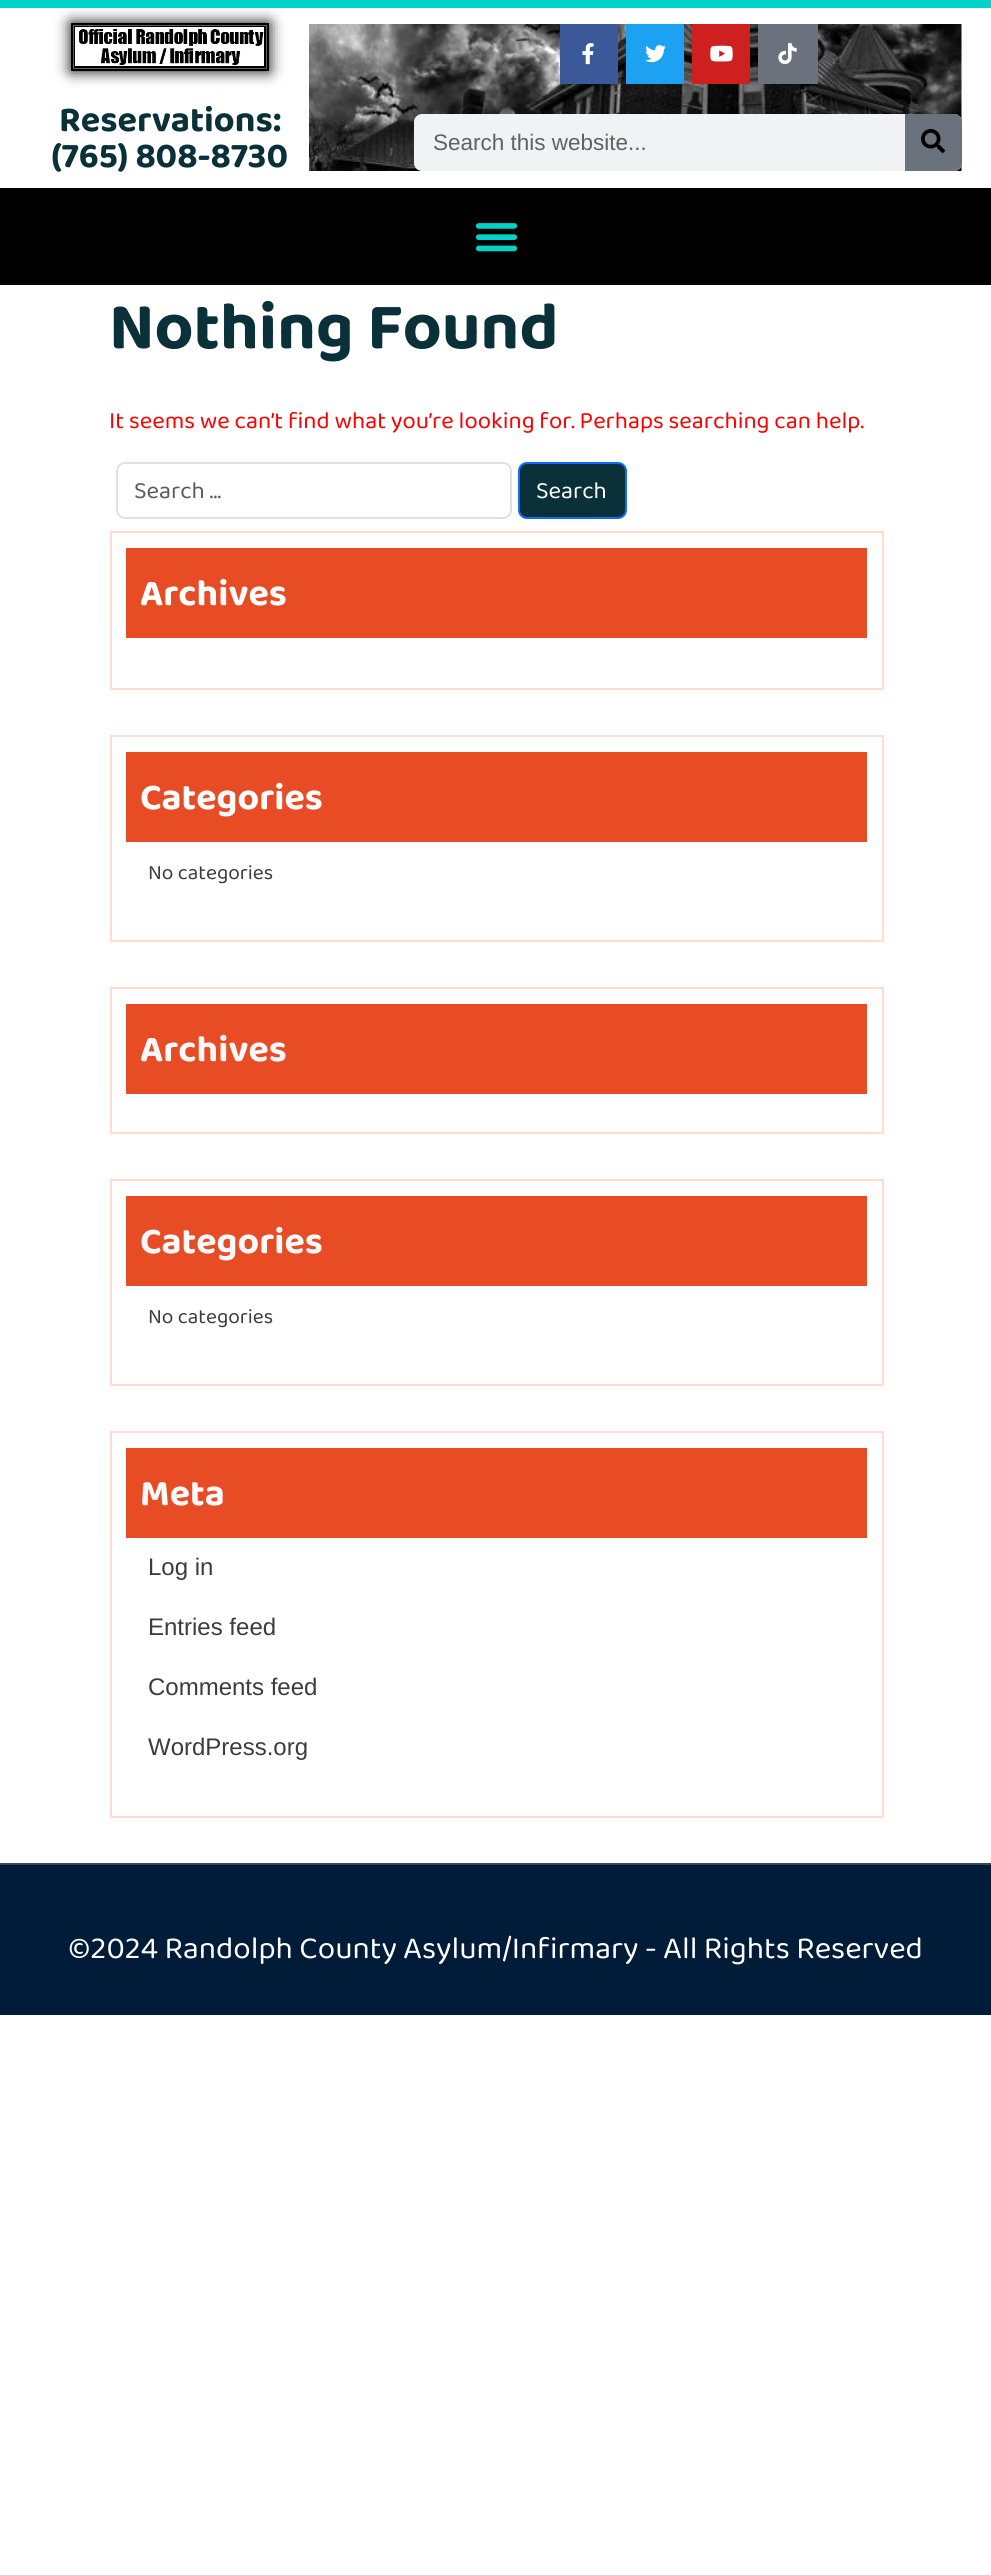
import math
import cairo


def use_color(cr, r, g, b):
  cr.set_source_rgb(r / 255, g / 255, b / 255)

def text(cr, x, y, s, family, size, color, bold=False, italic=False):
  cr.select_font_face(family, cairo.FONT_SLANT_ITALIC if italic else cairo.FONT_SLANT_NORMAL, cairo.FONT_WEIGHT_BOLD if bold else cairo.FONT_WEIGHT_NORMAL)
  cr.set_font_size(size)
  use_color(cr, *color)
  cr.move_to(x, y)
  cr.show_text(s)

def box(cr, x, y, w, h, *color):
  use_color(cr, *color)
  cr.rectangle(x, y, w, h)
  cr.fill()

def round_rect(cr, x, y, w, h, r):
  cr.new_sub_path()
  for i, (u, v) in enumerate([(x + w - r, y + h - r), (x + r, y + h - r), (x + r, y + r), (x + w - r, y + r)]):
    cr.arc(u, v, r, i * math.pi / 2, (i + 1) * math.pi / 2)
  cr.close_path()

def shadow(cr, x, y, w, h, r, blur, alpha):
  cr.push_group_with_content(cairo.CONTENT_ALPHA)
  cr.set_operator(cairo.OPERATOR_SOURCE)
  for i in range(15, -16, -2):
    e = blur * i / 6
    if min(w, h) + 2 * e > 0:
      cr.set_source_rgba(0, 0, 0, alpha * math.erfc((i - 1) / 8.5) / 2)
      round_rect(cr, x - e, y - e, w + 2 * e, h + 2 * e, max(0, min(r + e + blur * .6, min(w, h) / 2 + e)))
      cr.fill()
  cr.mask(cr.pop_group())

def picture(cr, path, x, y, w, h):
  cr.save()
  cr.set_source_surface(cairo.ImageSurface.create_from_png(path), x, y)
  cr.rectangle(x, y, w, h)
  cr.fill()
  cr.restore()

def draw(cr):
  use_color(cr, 255, 255, 255)
  cr.paint()
  box(cr, 0, 0, 991, 8, 2, 211, 201)
  use_color(cr, 0, 0, 0)
  shadow(cr, 71, 23, 198, 48, 0, 7.5, 0.99)
  cr.rectangle(72, 24, 196, 46)
  use_color(cr, 0, 0, 0)
  cr.stroke()
  cr.rectangle(75, 27, 190, 40)
  cr.stroke()
  picture(cr, "img_01.png", 75, 27, 189, 39)
  picture(cr, "img_02.png", 309, 24, 653, 147)
  box(cr, 560, 24, 58, 60, 59, 89, 152)
  picture(cr, "img_03.png", 582, 43, 12, 22)
  box(cr, 626, 24, 58, 60, 29, 161, 242)
  picture(cr, "img_04.png", 645, 45, 21, 18)
  box(cr, 692, 24, 58, 60, 205, 32, 31)
  picture(cr, "img_05.png", 710, 45, 23, 17)
  box(cr, 758, 24, 60, 60, 105, 114, 125)
  picture(cr, "img_06.png", 778, 43, 19, 22)
  use_color(cr, 241, 242, 243)
  round_rect(cr, 414, 114, 548, 57, 8)
  cr.fill()
  use_color(cr, 105, 114, 125)
  cr.new_path()
  cr.move_to(905, 114)
  cr.line_to(954, 114)
  cr.curve_to(958.5, 114, 962, 117.5, 962, 122)
  cr.line_to(962, 163)
  cr.curve_to(962, 167.5, 958.5, 171, 954, 171)
  cr.line_to(905, 171)
  cr.close_path()
  cr.fill()
  picture(cr, "img_07.png", 921, 129, 24, 24)
  box(cr, 0, 188, 991, 97, 0, 0, 0)
  picture(cr, "img_08.png", 475, 223, 43, 29)
  round_rect(cr, 117, 463, 394, 55, 8)
  use_color(cr, 222, 226, 230)
  cr.stroke()
  use_color(cr, 10, 48, 58)
  round_rect(cr, 519, 463, 107, 55, 8)
  cr.fill_preserve()
  use_color(cr, 13, 110, 253)
  cr.stroke()
  cr.rectangle(111, 532, 772, 157)
  use_color(cr, 255, 219, 210)
  cr.stroke()
  box(cr, 126, 548, 741, 90, 231, 76, 37)
  cr.rectangle(111, 736, 772, 205)
  use_color(cr, 255, 219, 210)
  cr.stroke()
  box(cr, 126, 752, 741, 90, 231, 76, 37)
  cr.rectangle(111, 988, 772, 145)
  use_color(cr, 255, 219, 210)
  cr.stroke()
  box(cr, 126, 1004, 741, 90, 231, 76, 37)
  cr.rectangle(111, 1180, 772, 205)
  use_color(cr, 255, 219, 210)
  cr.stroke()
  box(cr, 126, 1196, 741, 90, 231, 76, 37)
  cr.rectangle(111, 1432, 772, 385)
  use_color(cr, 255, 219, 210)
  cr.stroke()
  box(cr, 126, 1448, 741, 90, 231, 76, 37)
  box(cr, 0, 1865, 991, 150, 0, 28, 56)
  box(cr, 0, 1863, 991, 2, 48, 71, 94)
  text(cr, 59, 131, "Reservations:", "Baloo Chettan 2", 36, (10, 48, 58), bold=True)
  text(cr, 51, 167, "(765) 808-8730", "Baloo Chettan 2", 36, (10, 48, 58), bold=True)
  text(cr, 433, 150, "Search this website...", "Liberation Sans", 22.5, (96, 97, 97))
  text(cr, 109, 348, "Nothing Found", "Baloo Chettan 2", 67.5, (10, 48, 58), bold=True)
  text(cr, 109, 428, "It seems we can’t find what you’re looking for. Perhaps searching can help.", "Baloo Chettan 2", 24, (252, 0, 0))
  text(cr, 134, 498, "Search …", "Baloo Chettan 2", 24, (89, 92, 95))
  text(cr, 536, 498, "Search", "Baloo Chettan 2", 24, (255, 255, 255))
  text(cr, 140, 605, "Archives", "Baloo Chettan 2", 37.5, (255, 255, 255), bold=True)
  text(cr, 140, 809, "Categories", "Baloo Chettan 2", 37.5, (255, 255, 255), bold=True)
  text(cr, 148, 879, "No categories", "Baloo Chettan 2", 21, (60, 60, 60))
  text(cr, 140, 1061, "Archives", "Baloo Chettan 2", 37.5, (249, 249, 249), bold=True)
  text(cr, 140, 1253, "Categories", "Baloo Chettan 2", 37.5, (249, 249, 249), bold=True)
  text(cr, 148, 1323, "No categories", "Baloo Chettan 2", 21, (60, 60, 60))
  text(cr, 140, 1505, "Meta", "Baloo Chettan 2", 37.5, (249, 249, 249), bold=True)
  text(cr, 148, 1575, "Log in", "Liberation Sans", 24, (60, 60, 60))
  text(cr, 148, 1635, "Entries feed", "Liberation Sans", 24, (60, 60, 60))
  text(cr, 148, 1695, "Comments feed", "Liberation Sans", 24, (60, 60, 60))
  text(cr, 148, 1755, "WordPress.org", "Liberation Sans", 24, (60, 60, 60))
  text(cr, 68, 1958, "©2024 Randolph County Asylum/Infirmary - All Rights Reserved", "Baloo Chettan 2", 31.5, (255, 255, 255))


surface = cairo.ImageSurface(cairo.FORMAT_RGB24, 991, 2575)
cr = cairo.Context(surface)
options = cairo.FontOptions()
options.set_hint_metrics(cairo.HINT_METRICS_OFF)
options.set_hint_style(cairo.HINT_STYLE_NONE)
cr.set_font_options(options)
cr.set_miter_limit(4)
draw(cr)
surface.write_to_png("out.png")
